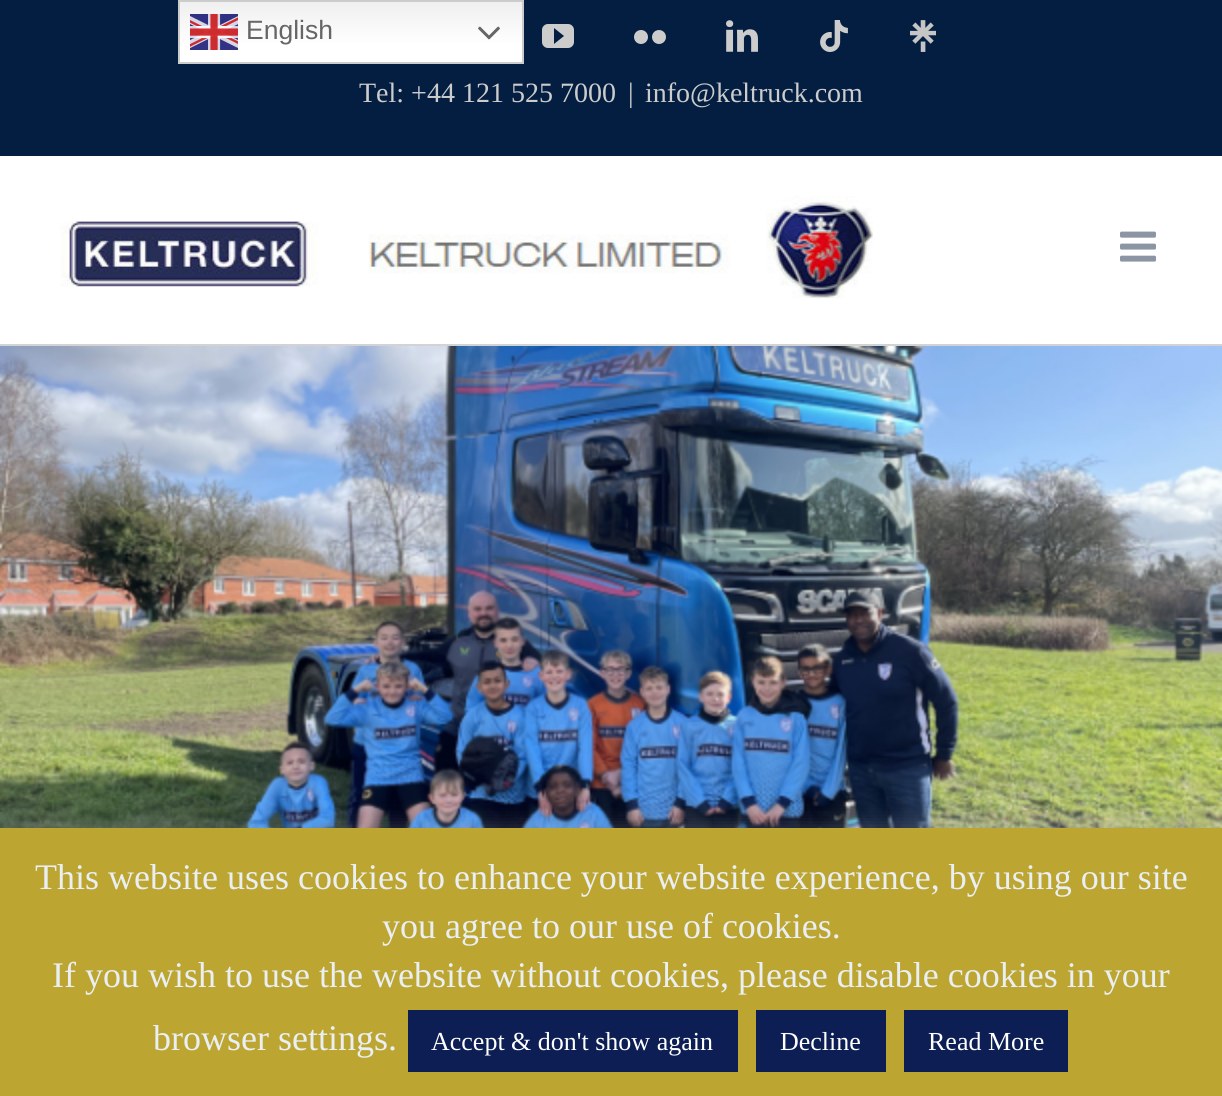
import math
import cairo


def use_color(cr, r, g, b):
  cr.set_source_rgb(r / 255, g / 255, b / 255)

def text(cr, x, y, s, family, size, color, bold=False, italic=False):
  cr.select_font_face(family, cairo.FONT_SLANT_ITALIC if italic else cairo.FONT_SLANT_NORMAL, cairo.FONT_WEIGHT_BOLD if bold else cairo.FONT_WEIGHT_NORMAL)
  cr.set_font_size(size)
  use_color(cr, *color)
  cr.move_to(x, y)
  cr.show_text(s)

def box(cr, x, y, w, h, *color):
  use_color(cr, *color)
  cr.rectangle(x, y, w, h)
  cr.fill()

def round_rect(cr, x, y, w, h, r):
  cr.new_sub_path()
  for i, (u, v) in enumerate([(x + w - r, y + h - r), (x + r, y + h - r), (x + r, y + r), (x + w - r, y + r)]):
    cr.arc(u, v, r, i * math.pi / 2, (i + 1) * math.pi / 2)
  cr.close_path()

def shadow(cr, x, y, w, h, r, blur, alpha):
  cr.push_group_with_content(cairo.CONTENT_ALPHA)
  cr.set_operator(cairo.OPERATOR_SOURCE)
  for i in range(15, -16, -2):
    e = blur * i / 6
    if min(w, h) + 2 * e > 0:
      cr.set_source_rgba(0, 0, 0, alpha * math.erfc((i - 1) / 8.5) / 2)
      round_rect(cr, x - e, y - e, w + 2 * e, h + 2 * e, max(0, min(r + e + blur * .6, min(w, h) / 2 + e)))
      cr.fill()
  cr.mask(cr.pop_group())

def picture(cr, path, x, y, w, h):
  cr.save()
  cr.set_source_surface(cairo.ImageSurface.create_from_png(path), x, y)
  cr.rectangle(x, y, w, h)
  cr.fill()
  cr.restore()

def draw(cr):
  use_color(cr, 255, 255, 255)
  cr.paint()
  box(cr, 0, 0, 1222, 156, 4, 30, 66)
  gradient = cairo.LinearGradient(351, 0, 351, 64)
  gradient.add_color_stop_rgba(0, 0.937, 0.937, 0.937, 1)
  gradient.add_color_stop_rgba(0.7, 1, 1, 1, 1)
  cr.set_source(gradient)
  cr.rectangle(180, 2, 342, 60)
  cr.fill()
  cr.rectangle(179, 1, 344, 62)
  use_color(cr, 204, 204, 204)
  cr.stroke()
  picture(cr, "img_01.png", 190, 14, 48, 36)
  picture(cr, "img_02.png", 478, 26, 22, 14)
  picture(cr, "img_10.png", 0, 346, 1222, 482)
  use_color(cr, 172, 171, 171)
  shadow(cr, 0, 826, 1222, 268, 0, 10, 0.3)
  box(cr, 0, 828, 1222, 268, 188, 165, 49)
  box(cr, 408, 1010, 330, 62, 12, 30, 84)
  box(cr, 756, 1010, 130, 62, 12, 30, 84)
  box(cr, 904, 1010, 164, 62, 12, 30, 84)
  picture(cr, "img_03.png", 542, 24, 32, 24)
  picture(cr, "img_04.png", 634, 30, 32, 14)
  picture(cr, "img_05.png", 726, 20, 32, 32)
  picture(cr, "img_06.png", 820, 20, 28, 32)
  picture(cr, "img_07.png", 910, 20, 26, 32)
  picture(cr, "img_08.png", 60, 196, 813, 103)
  picture(cr, "img_09.png", 1120, 231, 36, 31)
  box(cr, 0, 344, 1222, 2, 210, 211, 212)
  text(cr, 246, 39, "English", "Liberation Sans", 26.5, (102, 102, 102))
  text(cr, 35, 889, "This website uses cookies to enhance your website experience, by using our site", "Liberation Serif", 36, (233, 239, 243))
  text(cr, 382, 938, "you agree to our use of cookies.", "Liberation Serif", 36, (233, 239, 243))
  text(cr, 52, 987, "If you wish to use the website without cookies, please disable cookies in your", "Liberation Serif", 36, (233, 239, 243))
  text(cr, 153, 1050, "browser settings.", "Liberation Serif", 36, (233, 239, 243))
  text(cr, 431, 1050, "Accept & don't show again", "Liberation Serif", 26, (255, 255, 255))
  text(cr, 780, 1050, "Decline", "Liberation Serif", 26, (255, 255, 255))
  text(cr, 928, 1050, "Read More", "Liberation Serif", 26, (255, 255, 255))
  text(cr, 359, 102, "Tel: +44 121 525 7000", "Liberation Serif", 28, (204, 204, 204))
  text(cr, 628, 102, "|", "Liberation Serif", 28, (204, 204, 204))
  text(cr, 645, 102, "info@keltruck.com", "Liberation Serif", 28, (204, 204, 204))


surface = cairo.ImageSurface(cairo.FORMAT_RGB24, 1222, 1096)
cr = cairo.Context(surface)
options = cairo.FontOptions()
options.set_hint_metrics(cairo.HINT_METRICS_OFF)
options.set_hint_style(cairo.HINT_STYLE_NONE)
cr.set_font_options(options)
cr.set_miter_limit(4)
draw(cr)
surface.write_to_png("out.png")
